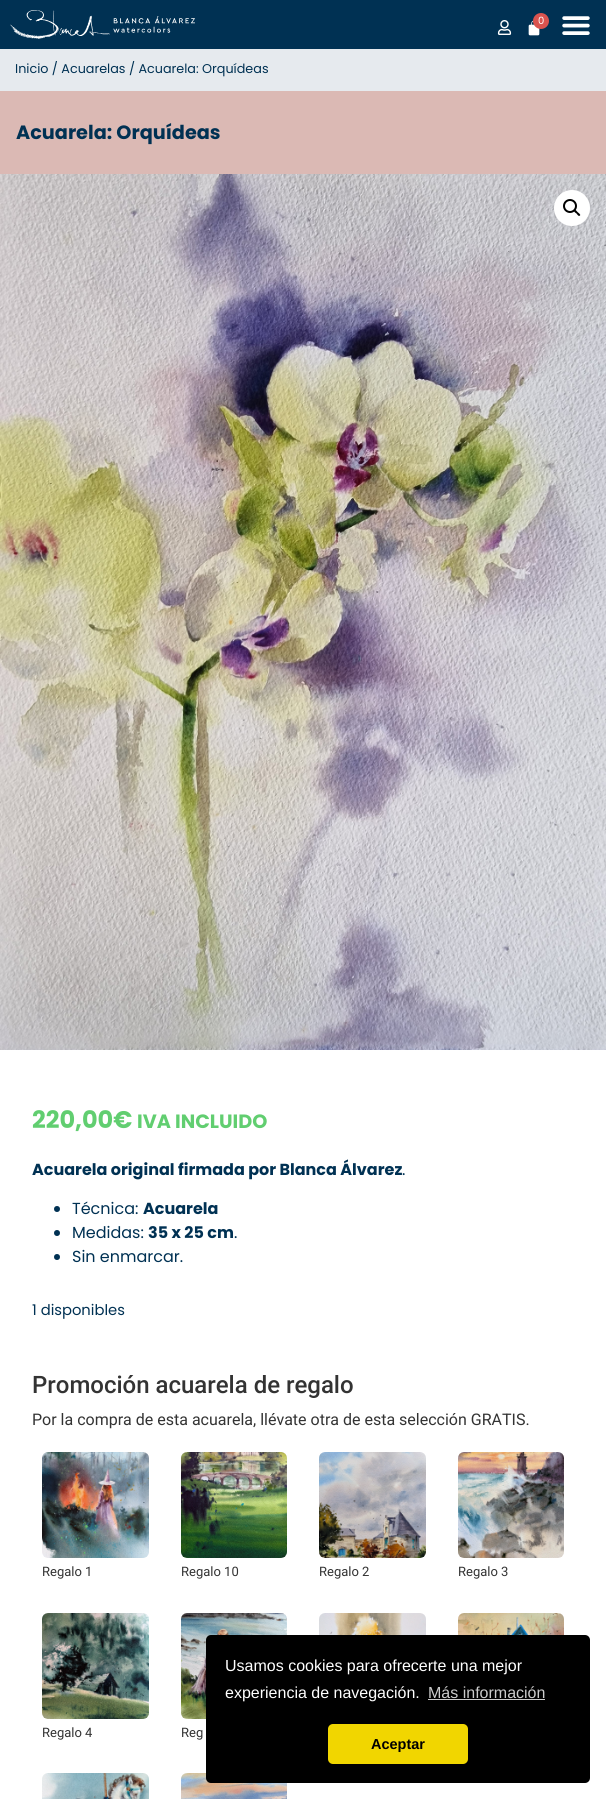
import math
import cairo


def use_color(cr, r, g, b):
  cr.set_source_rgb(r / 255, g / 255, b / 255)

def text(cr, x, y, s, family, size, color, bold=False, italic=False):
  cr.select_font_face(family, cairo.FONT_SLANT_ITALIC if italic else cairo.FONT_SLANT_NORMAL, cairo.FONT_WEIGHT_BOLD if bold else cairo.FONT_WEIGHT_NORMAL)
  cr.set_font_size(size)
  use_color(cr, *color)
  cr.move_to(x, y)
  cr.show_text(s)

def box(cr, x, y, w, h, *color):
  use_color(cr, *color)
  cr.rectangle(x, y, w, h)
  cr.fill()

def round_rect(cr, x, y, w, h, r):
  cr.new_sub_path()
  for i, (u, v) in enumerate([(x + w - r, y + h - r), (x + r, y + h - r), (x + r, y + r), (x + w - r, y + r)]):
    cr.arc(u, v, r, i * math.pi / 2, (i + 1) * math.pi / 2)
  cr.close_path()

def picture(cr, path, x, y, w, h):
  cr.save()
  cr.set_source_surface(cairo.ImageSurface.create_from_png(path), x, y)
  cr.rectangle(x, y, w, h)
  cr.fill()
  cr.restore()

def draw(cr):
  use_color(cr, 255, 255, 255)
  cr.paint()
  box(cr, 0, 0, 606, 49, 0, 49, 83)
  picture(cr, "img_01.png", 10, 10, 185, 29)
  picture(cr, "img_02.png", 497, 20, 15, 15)
  picture(cr, "img_03.png", 528, 20, 12, 16)
  use_color(cr, 217, 83, 79)
  cr.arc(541, 21, 8, 0, 2 * math.pi)
  cr.fill()
  picture(cr, "img_04.png", 562, 16, 28, 19)
  box(cr, 0, 49, 606, 42, 230, 234, 238)
  box(cr, 0, 91, 606, 83, 219, 185, 180)
  picture(cr, "img_05.png", 0, 174, 606, 876)
  use_color(cr, 255, 255, 255)
  cr.arc(572, 208, 18, 0, 2 * math.pi)
  cr.fill()
  cr.arc(570, 206, 6, 0, 2 * math.pi)
  use_color(cr, 0, 0, 0)
  cr.stroke()
  cr.new_path()
  cr.move_to(574, 210)
  cr.curve_to(575.5, 209, 577, 211.5, 577.5, 212)
  cr.curve_to(578.5, 213, 581, 214.5, 580, 215.5)
  cr.curve_to(578.5, 217, 577, 214, 576.5, 213.5)
  cr.curve_to(575.5, 213, 573, 211, 574, 210)
  cr.close_path()
  cr.fill()
  use_color(cr, 0, 49, 83)
  cr.arc(57, 1209, 3, 0, 2 * math.pi)
  cr.fill()
  cr.arc(57, 1233, 3, 0, 2 * math.pi)
  cr.fill()
  cr.arc(57, 1257, 3, 0, 2 * math.pi)
  cr.fill()
  picture(cr, "img_06.png", 42, 1452, 107, 106)
  picture(cr, "img_07.png", 181, 1452, 106, 106)
  picture(cr, "img_08.png", 319, 1452, 107, 106)
  picture(cr, "img_09.png", 458, 1452, 106, 106)
  picture(cr, "img_10.png", 319, 1613, 107, 22)
  picture(cr, "img_11.png", 458, 1613, 106, 22)
  picture(cr, "img_12.png", 42, 1613, 107, 106)
  picture(cr, "img_13.png", 181, 1613, 106, 106)
  picture(cr, "img_14.png", 42, 1773, 107, 26)
  picture(cr, "img_15.png", 181, 1773, 106, 26)
  use_color(cr, 0, 0, 0)
  round_rect(cr, 206, 1635, 384, 148, 5)
  cr.fill()
  box(cr, 428, 1699, 117, 1, 204, 204, 204)
  use_color(cr, 241, 214, 0)
  round_rect(cr, 328, 1724, 140, 40, 5)
  cr.fill()
  text(cr, 538, 24, "0", "Poppins", 10, (255, 255, 255))
  text(cr, 15, 73, "Inicio / Acuarelas / Acuarela: Orquídeas", "Poppins", 12.75, (0, 49, 83))
  text(cr, 16, 139, "Acuarela: Orquídeas", "Poppins", 19.25, (0, 49, 83), bold=True)
  text(cr, 32, 1128, "220,00€", "Poppins", 24, (97, 206, 112), bold=True)
  text(cr, 137, 1128, "IVA INCLUIDO", "Poppins", 19.25, (97, 206, 112), bold=True)
  text(cr, 32, 1175, "Acuarela original firmada por Blanca Álvarez", "Poppins", 16, (0, 49, 83), bold=True)
  text(cr, 402, 1175, ".", "Poppins", 16, (0, 49, 83))
  text(cr, 72, 1214, "Técnica:", "Poppins", 16, (0, 49, 83))
  text(cr, 143, 1214, "Acuarela", "Poppins", 16, (0, 49, 83), bold=True)
  text(cr, 72, 1238, "Medidas:", "Poppins", 16, (0, 49, 83))
  text(cr, 148, 1238, "35 x 25 cm", "Poppins", 16, (0, 49, 83), bold=True)
  text(cr, 234, 1238, ".", "Poppins", 16, (0, 49, 83))
  text(cr, 72, 1262, "Sin enmarcar.", "Poppins", 16, (0, 49, 83))
  text(cr, 32, 1315, "1 disponibles", "Poppins", 14.75, (0, 49, 83))
  text(cr, 32, 1393, "Promoción acuarela de regalo", "Roboto Medium", 24, (51, 51, 51))
  text(cr, 32, 1425, "Por la compra de esta acuarela, llévate otra de esta selección GRATIS.", "Roboto", 16, (51, 51, 51))
  text(cr, 42, 1576, "Regalo 1", "Roboto", 13, (51, 51, 51))
  text(cr, 181, 1576, "Regalo 10", "Roboto", 13, (51, 51, 51))
  text(cr, 319, 1576, "Regalo 2", "Roboto", 13, (51, 51, 51))
  text(cr, 458, 1576, "Regalo 3", "Roboto", 13, (51, 51, 51))
  text(cr, 42, 1737, "Regalo 4", "Roboto", 13, (51, 51, 51))
  text(cr, 181, 1737, "Reg", "Roboto", 13, (51, 51, 51))
  text(cr, 225, 1671, "Usamos cookies para ofrecerte una mejor", "Liberation Sans", 16, (255, 255, 255))
  text(cr, 225, 1698, "experiencia de navegación.", "Liberation Sans", 16, (255, 255, 255))
  text(cr, 428, 1698, "Más información", "Liberation Sans", 16, (204, 204, 204))
  text(cr, 371, 1749, "Aceptar", "Liberation Sans", 14.5, (0, 0, 0), bold=True)


surface = cairo.ImageSurface(cairo.FORMAT_RGB24, 606, 1799)
cr = cairo.Context(surface)
options = cairo.FontOptions()
options.set_hint_metrics(cairo.HINT_METRICS_OFF)
options.set_hint_style(cairo.HINT_STYLE_NONE)
cr.set_font_options(options)
cr.set_miter_limit(4)
draw(cr)
surface.write_to_png("out.png")
